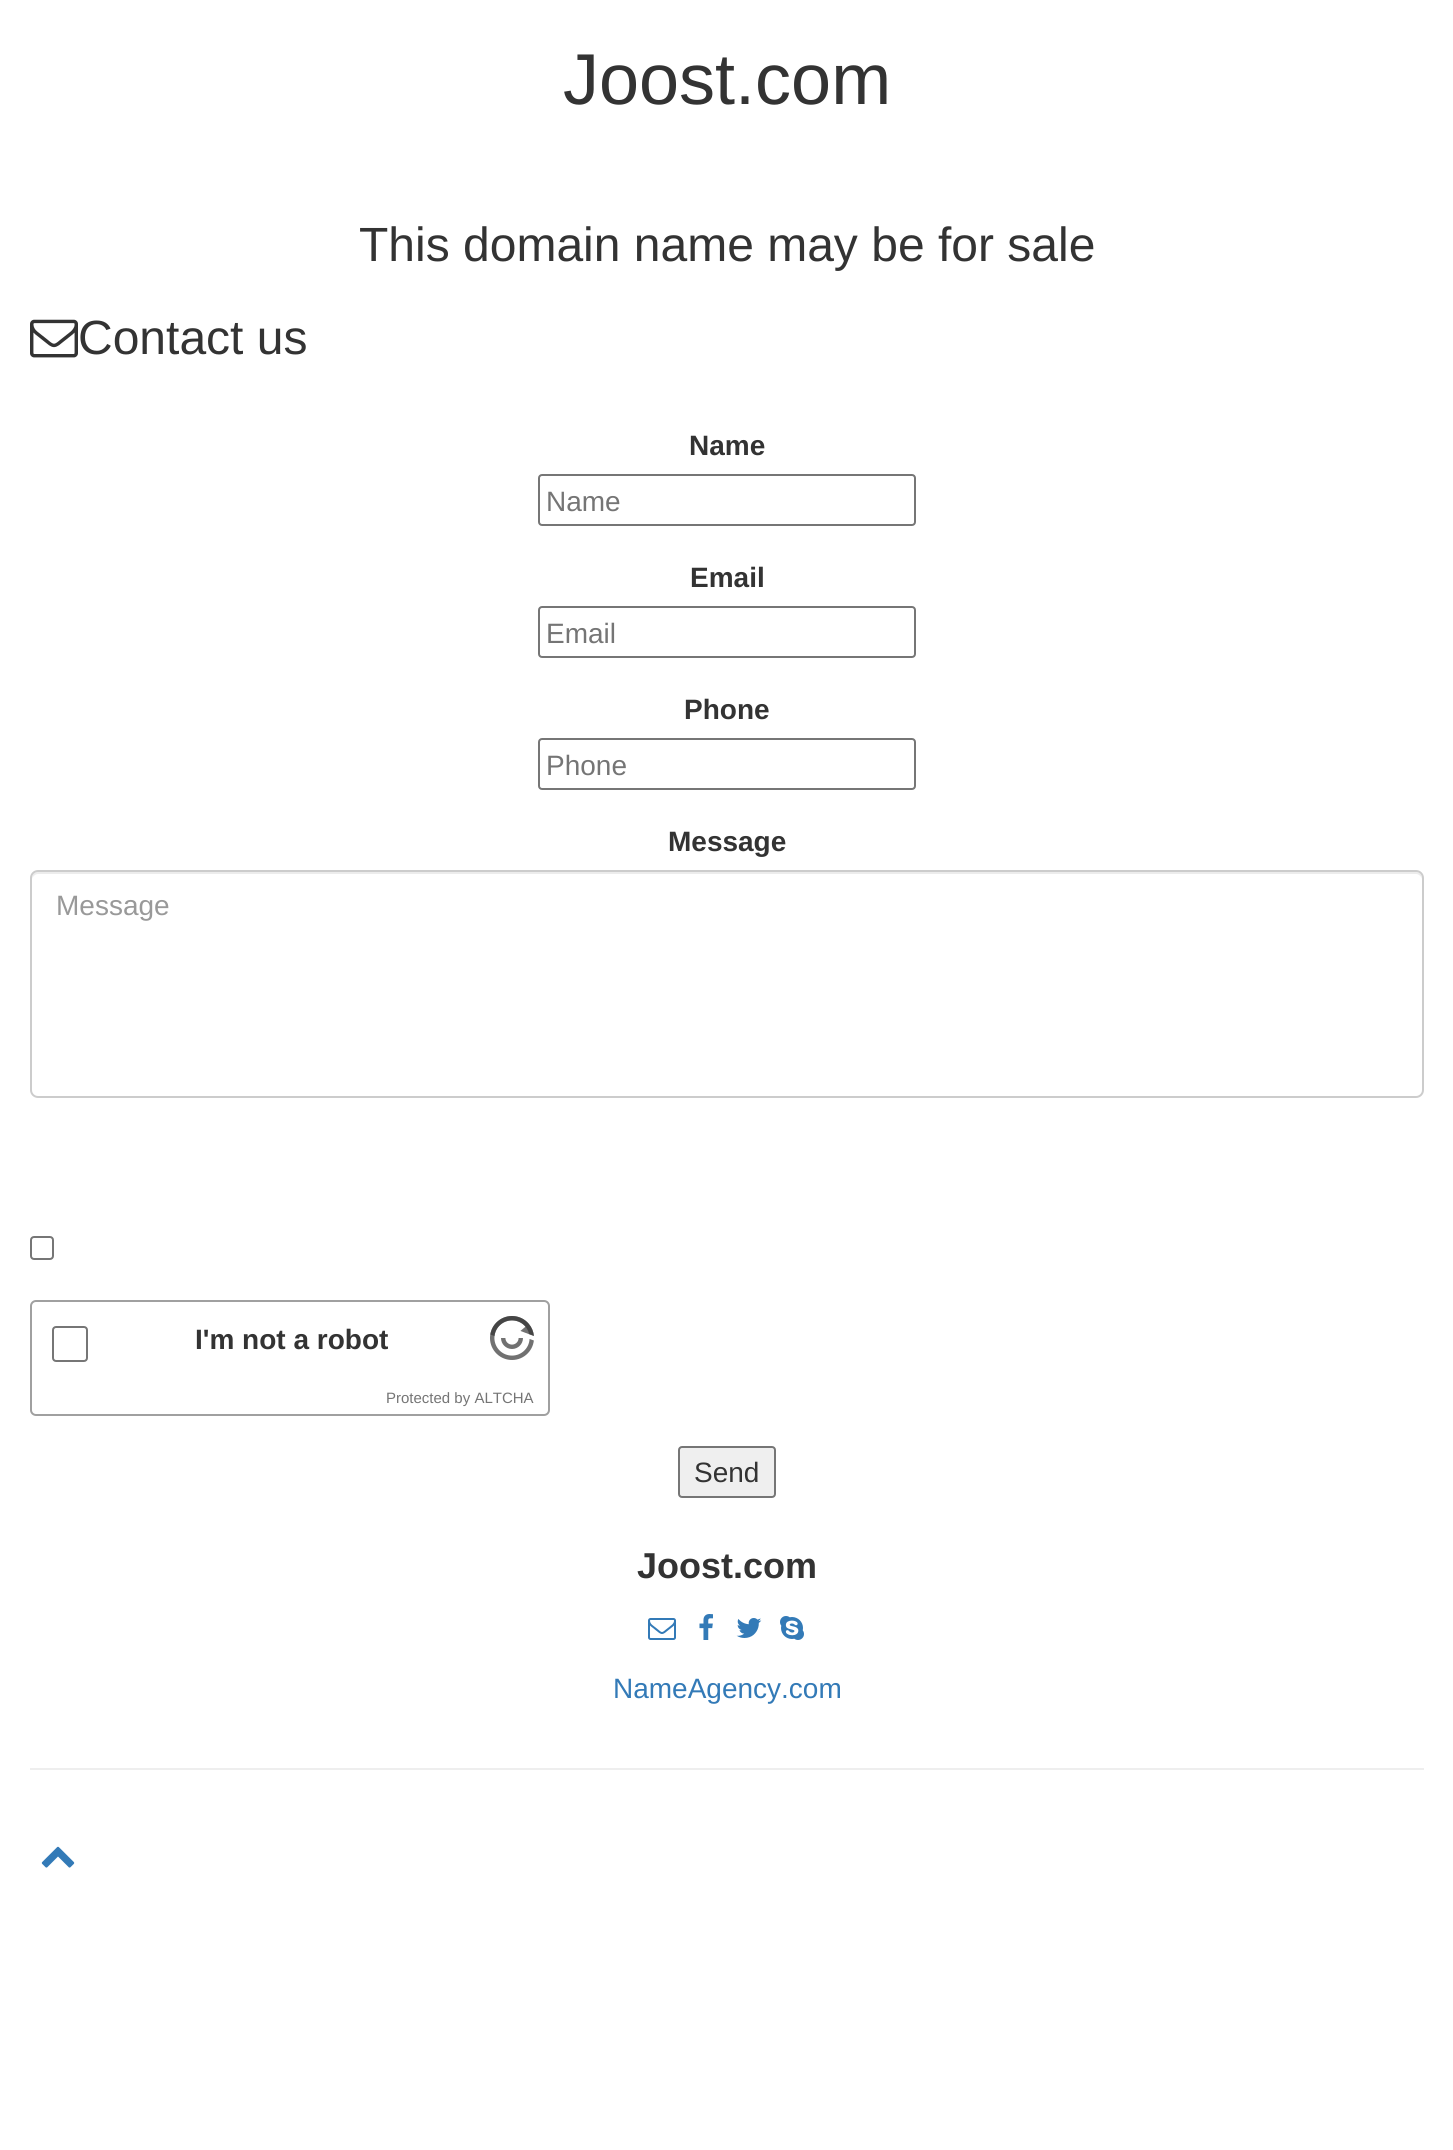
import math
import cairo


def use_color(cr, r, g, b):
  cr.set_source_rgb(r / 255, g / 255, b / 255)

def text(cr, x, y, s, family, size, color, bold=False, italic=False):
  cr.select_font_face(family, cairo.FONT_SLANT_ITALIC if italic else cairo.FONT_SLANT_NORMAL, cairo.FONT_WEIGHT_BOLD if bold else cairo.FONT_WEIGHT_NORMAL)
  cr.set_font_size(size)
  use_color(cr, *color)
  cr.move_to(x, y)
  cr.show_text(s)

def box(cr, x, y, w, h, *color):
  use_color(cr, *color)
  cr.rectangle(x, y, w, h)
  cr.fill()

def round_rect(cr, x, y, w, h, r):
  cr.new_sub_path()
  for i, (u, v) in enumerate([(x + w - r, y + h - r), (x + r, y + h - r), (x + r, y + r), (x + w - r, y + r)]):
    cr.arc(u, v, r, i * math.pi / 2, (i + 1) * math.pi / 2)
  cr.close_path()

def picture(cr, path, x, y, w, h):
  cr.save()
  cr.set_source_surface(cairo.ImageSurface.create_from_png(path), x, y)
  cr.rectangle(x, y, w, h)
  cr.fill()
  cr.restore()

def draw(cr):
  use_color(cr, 255, 255, 255)
  cr.paint()
  picture(cr, "img_01.png", 30, 319, 48, 39)
  round_rect(cr, 539, 475, 376, 50, 3)
  use_color(cr, 118, 118, 118)
  cr.stroke()
  round_rect(cr, 539, 607, 376, 50, 3)
  cr.stroke()
  round_rect(cr, 539, 739, 376, 50, 3)
  cr.stroke()
  use_color(cr, 236, 236, 236)
  cr.new_path()
  cr.move_to(38, 874)
  cr.line_to(1416, 874)
  cr.curve_to(1419, 874, 1422, 877, 1422, 880)
  cr.curve_to(1422, 876, 1421, 872, 1416, 872)
  cr.line_to(38, 872)
  cr.curve_to(33, 872, 32, 876, 32, 880)
  cr.curve_to(32, 877, 35, 874, 38, 874)
  cr.close_path()
  cr.fill()
  round_rect(cr, 31, 871, 1392, 226, 7)
  use_color(cr, 204, 204, 204)
  cr.stroke()
  round_rect(cr, 31, 1237, 22, 22, 3)
  use_color(cr, 118, 118, 118)
  cr.stroke()
  round_rect(cr, 31, 1301, 518, 114, 5)
  use_color(cr, 160, 160, 160)
  cr.stroke()
  round_rect(cr, 53, 1327, 34, 34, 3)
  use_color(cr, 118, 118, 118)
  cr.stroke()
  picture(cr, "img_02.png", 490, 1316, 44, 44)
  use_color(cr, 239, 239, 239)
  round_rect(cr, 679, 1447, 96, 50, 3)
  cr.fill_preserve()
  use_color(cr, 118, 118, 118)
  cr.stroke()
  picture(cr, "img_03.png", 648, 1618, 28, 22)
  picture(cr, "img_04.png", 699, 1614, 14, 26)
  picture(cr, "img_05.png", 736, 1618, 26, 20)
  picture(cr, "img_06.png", 780, 1616, 24, 24)
  box(cr, 30, 1768, 1394, 2, 238, 238, 238)
  picture(cr, "img_07.png", 41, 1846, 34, 22)
  text(cr, 563, 104, "Joost.com", "Liberation Sans", 72, (51, 51, 51))
  text(cr, 359, 261, "This domain name may be for sale", "Liberation Sans", 48, (51, 51, 51))
  text(cr, 78, 354, "Contact us", "Liberation Sans", 48, (51, 51, 51))
  text(cr, 689, 455, "Name", "Liberation Sans", 28, (51, 51, 51), bold=True)
  text(cr, 546, 511, "Name", "Liberation Sans", 28, (117, 117, 117))
  text(cr, 690, 587, "Email", "Liberation Sans", 28, (51, 51, 51), bold=True)
  text(cr, 546, 643, "Email", "Liberation Sans", 28, (117, 117, 117))
  text(cr, 684, 719, "Phone", "Liberation Sans", 28, (51, 51, 51), bold=True)
  text(cr, 546, 775, "Phone", "Liberation Sans", 28, (117, 117, 117))
  text(cr, 668, 851, "Message", "Liberation Sans", 28, (51, 51, 51), bold=True)
  text(cr, 56, 915, "Message", "Liberation Sans", 28, (153, 153, 153))
  text(cr, 195, 1349, "I'm not a robot", "Liberation Sans", 28, (51, 51, 51), bold=True)
  text(cr, 386, 1403, "Protected by ALTCHA", "Liberation Sans", 15, (117, 117, 117))
  text(cr, 694, 1482, "Send", "Liberation Sans", 28, (51, 51, 51))
  text(cr, 637, 1578, "Joost.com", "Liberation Sans", 36, (51, 51, 51), bold=True)
  text(cr, 613, 1698, "NameAgency.com", "Liberation Sans", 28, (51, 122, 183))


surface = cairo.ImageSurface(cairo.FORMAT_RGB24, 1453, 2150)
cr = cairo.Context(surface)
options = cairo.FontOptions()
options.set_hint_metrics(cairo.HINT_METRICS_OFF)
options.set_hint_style(cairo.HINT_STYLE_NONE)
cr.set_font_options(options)
cr.set_miter_limit(4)
draw(cr)
surface.write_to_png("out.png")
